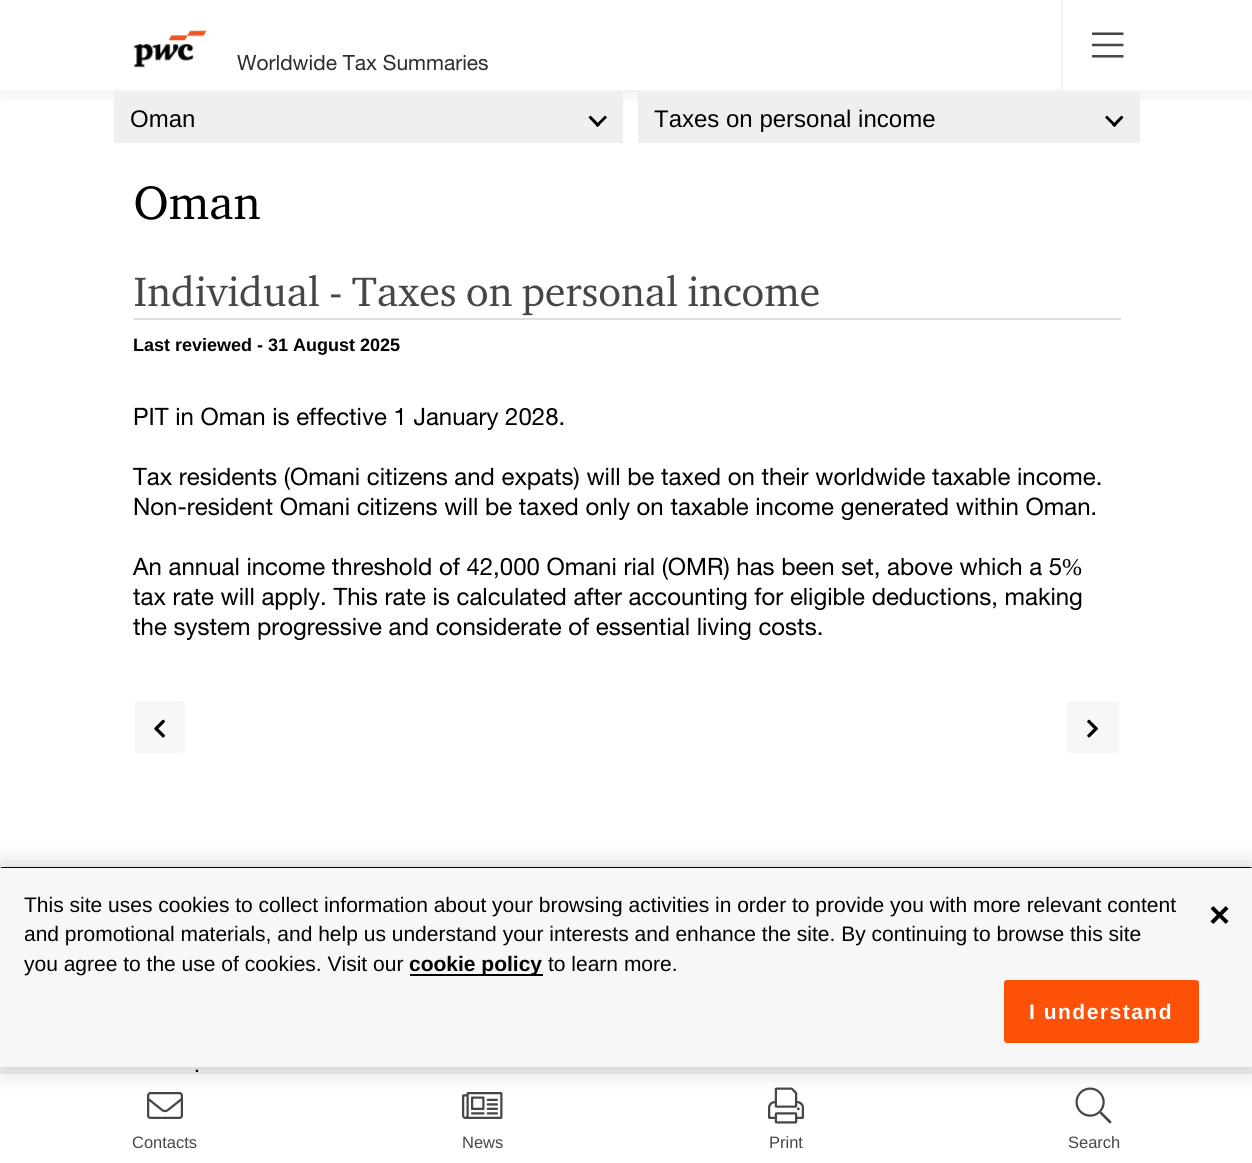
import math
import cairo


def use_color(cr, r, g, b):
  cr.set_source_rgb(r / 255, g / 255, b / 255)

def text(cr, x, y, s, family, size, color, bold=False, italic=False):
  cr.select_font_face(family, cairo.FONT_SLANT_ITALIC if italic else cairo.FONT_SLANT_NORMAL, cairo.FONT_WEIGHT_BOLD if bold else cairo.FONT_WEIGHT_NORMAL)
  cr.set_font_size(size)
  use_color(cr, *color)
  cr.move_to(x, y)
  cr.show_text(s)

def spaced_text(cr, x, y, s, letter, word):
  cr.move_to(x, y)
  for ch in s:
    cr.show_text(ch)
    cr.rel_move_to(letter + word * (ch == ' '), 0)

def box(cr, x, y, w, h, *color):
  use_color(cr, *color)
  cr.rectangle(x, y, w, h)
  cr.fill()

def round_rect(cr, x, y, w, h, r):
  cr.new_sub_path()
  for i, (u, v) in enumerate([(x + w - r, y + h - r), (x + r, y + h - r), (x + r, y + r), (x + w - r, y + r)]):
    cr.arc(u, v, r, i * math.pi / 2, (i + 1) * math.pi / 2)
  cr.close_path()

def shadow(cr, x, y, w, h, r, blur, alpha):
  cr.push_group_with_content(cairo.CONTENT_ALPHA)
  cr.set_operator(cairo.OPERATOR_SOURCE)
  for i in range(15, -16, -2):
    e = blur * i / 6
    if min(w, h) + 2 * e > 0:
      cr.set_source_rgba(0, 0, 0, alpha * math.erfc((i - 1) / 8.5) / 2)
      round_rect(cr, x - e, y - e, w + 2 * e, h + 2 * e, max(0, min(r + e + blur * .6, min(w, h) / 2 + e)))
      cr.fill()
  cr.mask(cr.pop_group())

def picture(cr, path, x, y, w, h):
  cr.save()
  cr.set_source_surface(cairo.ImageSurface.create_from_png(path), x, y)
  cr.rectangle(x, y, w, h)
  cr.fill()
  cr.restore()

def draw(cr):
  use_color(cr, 255, 255, 255)
  cr.paint()
  cr.save()
  cr.rectangle(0, 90, 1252, 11)
  cr.clip()
  use_color(cr, 0, 0, 0)
  shadow(cr, 0, 6, 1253, 90, 0, 12, 0.06)
  cr.restore()
  picture(cr, "img_01.png", 133, 30, 74, 38)
  box(cr, 1061, 0, 2, 90, 242, 242, 242)
  picture(cr, "img_02.png", 1092, 32, 32, 26)
  box(cr, 114, 90, 1026, 2, 242, 242, 242)
  box(cr, 114, 92, 509, 51, 238, 239, 241)
  use_color(cr, 0, 0, 0)
  cr.new_path()
  cr.move_to(607, 117.5)
  cr.line_to(597.5, 127)
  cr.line_to(595.5, 125)
  cr.line_to(605, 115.5)
  cr.close_path()
  cr.fill()
  cr.new_path()
  cr.move_to(600, 125)
  cr.line_to(597.5, 127)
  cr.line_to(588.5, 117.5)
  cr.line_to(590.5, 115.5)
  cr.close_path()
  cr.fill()
  box(cr, 638, 92, 502, 51, 238, 239, 241)
  use_color(cr, 0, 0, 0)
  cr.new_path()
  cr.move_to(1123.5, 117.5)
  cr.line_to(1114.5, 127)
  cr.line_to(1112, 125)
  cr.line_to(1121.5, 115.5)
  cr.close_path()
  cr.fill()
  cr.new_path()
  cr.move_to(1116.5, 125)
  cr.line_to(1114.5, 127)
  cr.line_to(1105, 117.5)
  cr.line_to(1107, 115.5)
  cr.close_path()
  cr.fill()
  picture(cr, "img_03.png", 135, 186, 125, 34)
  box(cr, 134, 318, 987, 2, 222, 222, 222)
  picture(cr, "img_04.png", 134, 275, 685, 41)
  use_color(cr, 245, 247, 248)
  round_rect(cr, 134, 701, 51, 52, 3)
  cr.fill()
  picture(cr, "img_05.png", 154, 719, 11, 19)
  round_rect(cr, 1067, 701, 52, 52, 3)
  cr.fill()
  picture(cr, "img_06.png", 1087, 719, 11, 19)
  box(cr, 0, 1067, 1252, 7, 245, 247, 248)
  use_color(cr, 0, 0, 0)
  shadow(cr, 0, 1077, 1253, 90, 0, 6, 0.13)
  box(cr, 0, 1074, 1252, 89, 255, 255, 255)
  picture(cr, "img_07.png", 147, 1092, 36, 27)
  picture(cr, "img_08.png", 462, 1092, 41, 27)
  picture(cr, "img_09.png", 768, 1087, 36, 37)
  picture(cr, "img_10.png", 1075, 1087, 37, 37)
  use_color(cr, 0, 0, 0)
  shadow(cr, 0, 867, 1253, 200, 0, 13.5, 0.2)
  box(cr, 0, 867, 1252, 200, 245, 247, 248)
  use_color(cr, 0, 0, 0)
  cr.new_path()
  cr.move_to(0, 867)
  cr.line_to(1252, 867)
  cr.line_to(1251, 868)
  cr.line_to(2, 868)
  cr.close_path()
  cr.fill()
  box(cr, 410, 974, 133, 2, 0, 0, 0)
  use_color(cr, 253, 81, 8)
  round_rect(cr, 1004, 980, 195, 63, 3)
  cr.fill()
  text(cr, 237, 70, "Worldwide Tax Summaries", "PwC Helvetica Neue", 21, (45, 45, 45))
  text(cr, 130, 127, "Oman", "Liberation Sans", 24, (0, 0, 0))
  text(cr, 654, 127, "Taxes on personal income", "Liberation Sans", 24, (0, 0, 0))
  text(cr, 133, 351, "Last reviewed - 31 August 2025", "Liberation Sans", 18, (0, 0, 0), bold=True)
  text(cr, 133, 425, "PIT in Oman is effective 1 January 2028.", "PwC Helvetica Neue", 24, (0, 0, 0))
  text(cr, 133, 485, "Tax residents (Omani citizens and expats) will be taxed on their worldwide taxable income.", "PwC Helvetica Neue", 24, (0, 0, 0))
  text(cr, 133, 515, "Non-resident Omani citizens will be taxed only on taxable income generated within Oman.", "PwC Helvetica Neue", 24, (0, 0, 0))
  text(cr, 133, 575, "An annual income threshold of 42,000 Omani rial (OMR) has been set, above which a 5", "PwC Helvetica Neue", 24, (0, 0, 0))
  text(cr, 1062, 575, "%", "Liberation Serif", 24, (0, 0, 0))
  text(cr, 133, 605, "tax rate will apply. This rate is calculated after accounting for eligible deductions, making", "PwC Helvetica Neue", 24, (0, 0, 0))
  text(cr, 133, 635, "the system progressive and considerate of essential living costs.", "PwC Helvetica Neue", 24, (0, 0, 0))
  text(cr, 132, 1148, "Contacts", "Liberation Sans", 16.5, (70, 70, 70))
  text(cr, 462, 1148, "News", "Liberation Sans", 16.5, (70, 70, 70))
  text(cr, 769, 1148, "Print", "Liberation Sans", 16.5, (70, 70, 70))
  text(cr, 1068, 1148, "Search", "Liberation Sans", 16.5, (70, 70, 70))
  text(cr, 24, 912, "This site uses cookies to collect information about your browsing activities in order to provide you with more relevant content", "Liberation Sans", 21, (0, 0, 0))
  text(cr, 24, 941, "and promotional materials, and help us understand your interests and enhance the site. By continuing to browse this site", "Liberation Sans", 21, (0, 0, 0))
  text(cr, 24, 971, "you agree to the use of cookies. Visit our", "Liberation Sans", 21, (0, 0, 0))
  text(cr, 409, 971, "cookie policy", "Liberation Sans", 21, (0, 0, 0), bold=True)
  text(cr, 548, 971, "to learn more.", "Liberation Sans", 21, (0, 0, 0))
  text(cr, 1209, 927, "×", "Liberation Sans", 36, (0, 0, 0), bold=True)
  cr.set_font_size(21)
  use_color(cr, 255, 255, 255)
  spaced_text(cr, 1029, 1019, "I understand", 1.5, 0)
  text(cr, 194, 1072, ".", "PwC Helvetica Neue", 21, (0, 0, 0))


surface = cairo.ImageSurface(cairo.FORMAT_RGB24, 1252, 1163)
cr = cairo.Context(surface)
options = cairo.FontOptions()
options.set_hint_metrics(cairo.HINT_METRICS_OFF)
options.set_hint_style(cairo.HINT_STYLE_NONE)
cr.set_font_options(options)
cr.set_miter_limit(4)
draw(cr)
surface.write_to_png("out.png")
